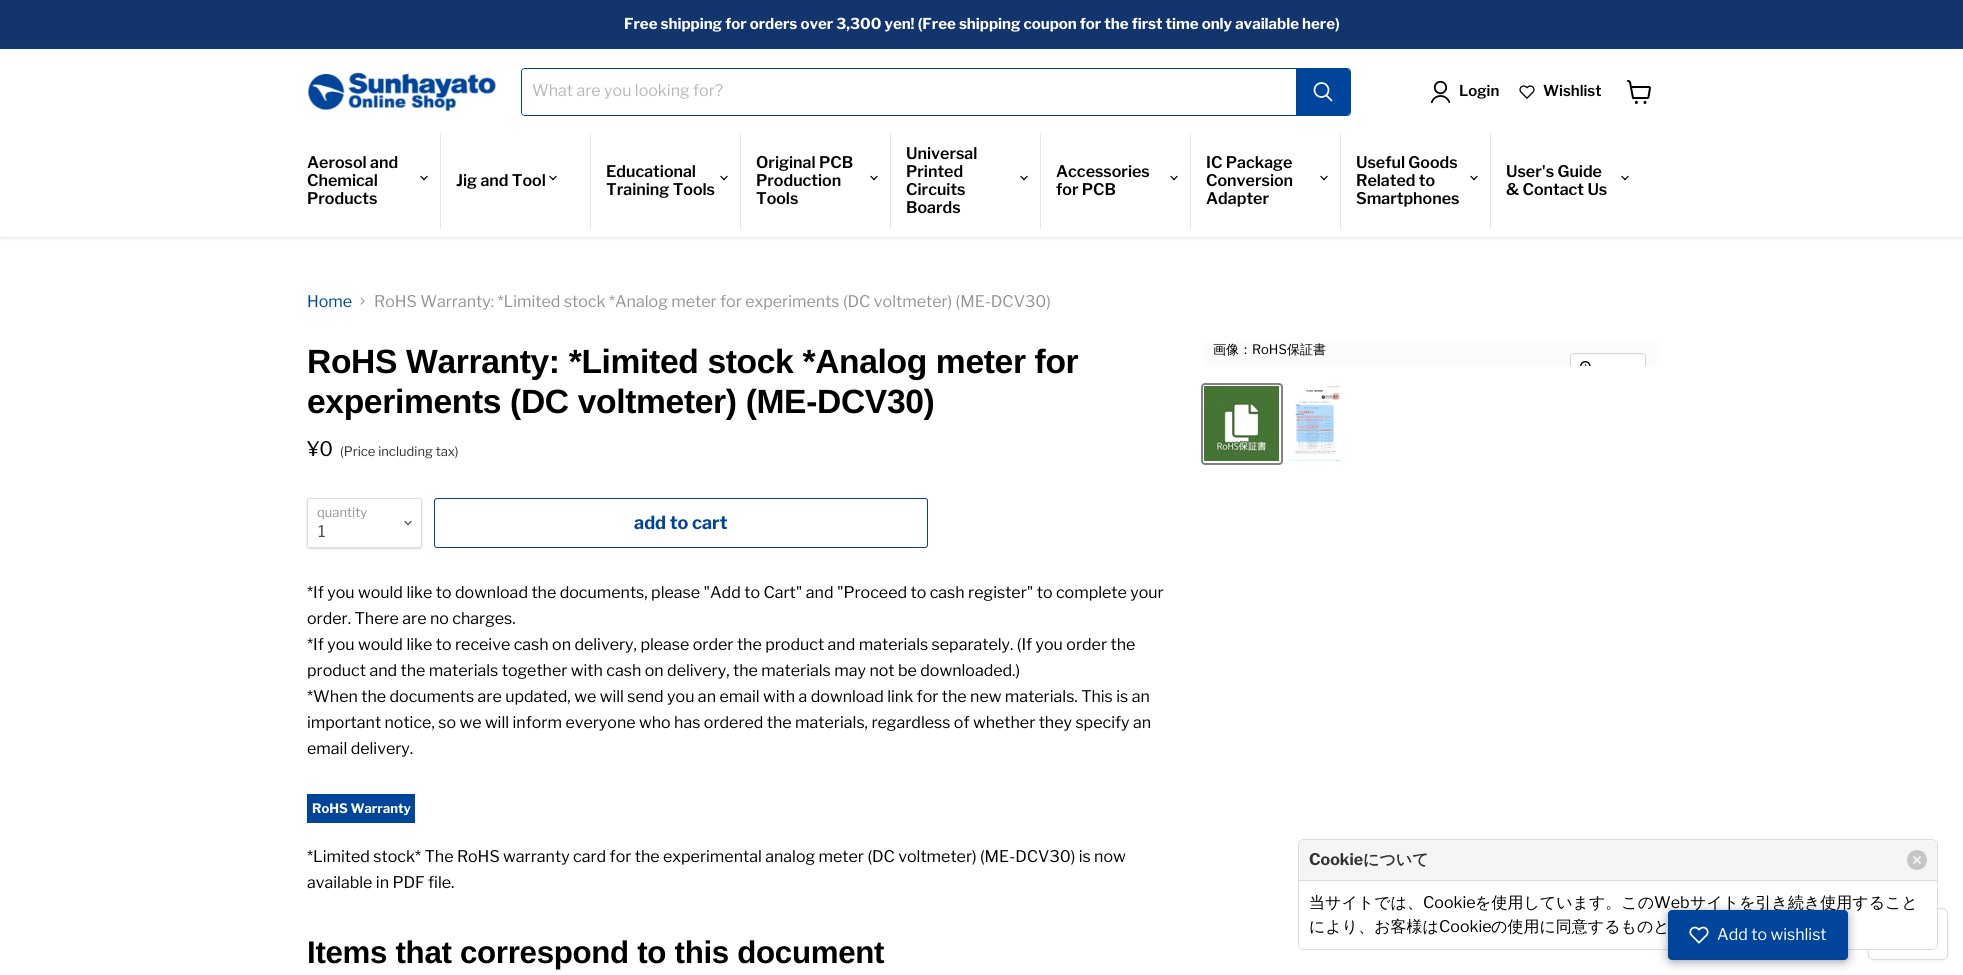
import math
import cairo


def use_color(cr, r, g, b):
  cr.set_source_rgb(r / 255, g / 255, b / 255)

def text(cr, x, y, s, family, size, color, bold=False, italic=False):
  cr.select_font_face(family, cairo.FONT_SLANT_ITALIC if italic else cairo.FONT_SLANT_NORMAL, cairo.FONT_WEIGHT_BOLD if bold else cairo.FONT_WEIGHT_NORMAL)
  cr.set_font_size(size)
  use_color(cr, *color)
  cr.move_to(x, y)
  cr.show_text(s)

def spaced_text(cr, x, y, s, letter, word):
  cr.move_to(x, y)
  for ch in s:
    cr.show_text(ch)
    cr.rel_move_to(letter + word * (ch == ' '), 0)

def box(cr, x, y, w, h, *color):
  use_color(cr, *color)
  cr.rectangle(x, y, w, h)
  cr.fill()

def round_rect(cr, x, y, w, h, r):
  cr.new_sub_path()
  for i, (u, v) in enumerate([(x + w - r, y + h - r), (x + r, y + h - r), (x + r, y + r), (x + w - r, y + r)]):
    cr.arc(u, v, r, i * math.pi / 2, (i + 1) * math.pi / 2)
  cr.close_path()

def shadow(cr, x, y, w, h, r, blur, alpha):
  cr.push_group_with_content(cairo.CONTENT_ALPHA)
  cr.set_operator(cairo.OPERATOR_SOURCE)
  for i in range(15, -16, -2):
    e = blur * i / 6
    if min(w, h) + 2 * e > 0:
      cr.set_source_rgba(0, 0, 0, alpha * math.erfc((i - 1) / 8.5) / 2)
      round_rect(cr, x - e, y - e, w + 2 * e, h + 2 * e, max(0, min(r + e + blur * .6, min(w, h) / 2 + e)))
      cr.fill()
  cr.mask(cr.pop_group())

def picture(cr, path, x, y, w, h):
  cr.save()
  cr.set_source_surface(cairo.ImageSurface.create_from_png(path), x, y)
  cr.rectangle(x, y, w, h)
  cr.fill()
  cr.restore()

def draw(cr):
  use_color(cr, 255, 255, 255)
  cr.paint()
  box(cr, 0, 0, 1963, 49, 18, 53, 112)
  use_color(cr, 128, 128, 128)
  shadow(cr, 0, 50, 1963, 188, 0, 2, 0.25)
  box(cr, 0, 49, 1963, 188, 255, 255, 255)
  picture(cr, "img_01.png", 307, 72, 189, 40)
  round_rect(cr, 521.5, 68.5, 829, 47, 3.5)
  use_color(cr, 0, 69, 156)
  cr.set_line_width(1)
  cr.stroke()
  use_color(cr, 255, 255, 255)
  cr.new_path()
  cr.move_to(525, 69)
  cr.line_to(1296, 69)
  cr.line_to(1296, 115)
  cr.line_to(525, 115)
  cr.curve_to(523.5, 115, 522, 113.5, 522, 112)
  cr.line_to(522, 72)
  cr.curve_to(522, 70.5, 523.5, 69, 525, 69)
  cr.close_path()
  cr.fill()
  use_color(cr, 0, 69, 156)
  cr.new_path()
  cr.move_to(1296.5, 69.5)
  cr.line_to(1347, 69.5)
  cr.curve_to(1348.5, 69.5, 1349.5, 70.5, 1349.5, 72)
  cr.line_to(1349.5, 112)
  cr.curve_to(1349.5, 113.5, 1348.5, 114.5, 1347, 114.5)
  cr.line_to(1296.5, 114.5)
  cr.close_path()
  cr.fill_preserve()
  cr.stroke()
  cr.new_path()
  cr.move_to(1331.5, 100.5)
  cr.line_to(1326.5, 95.5)
  use_color(cr, 255, 255, 255)
  cr.set_line_width(1.7)
  cr.set_line_cap(cairo.LINE_CAP_ROUND)
  cr.stroke()
  cr.arc(1321.5, 90, 7, 0, 2 * math.pi)
  cr.set_line_cap(cairo.LINE_CAP_BUTT)
  cr.stroke()
  picture(cr, "img_02.png", 1430, 80, 21, 24)
  picture(cr, "img_03.png", 1519, 85, 16, 14)
  picture(cr, "img_04.png", 1627, 80, 24, 24)
  box(cr, 440, 133, 1, 96, 230, 230, 230)
  picture(cr, "img_05.png", 420, 175, 8, 6)
  box(cr, 590, 133, 1, 96, 230, 230, 230)
  picture(cr, "img_05.png", 549, 175, 8, 6)
  box(cr, 740, 133, 1, 96, 230, 230, 230)
  picture(cr, "img_05.png", 720, 175, 8, 6)
  box(cr, 890, 133, 1, 96, 230, 230, 230)
  picture(cr, "img_05.png", 870, 175, 8, 6)
  box(cr, 1040, 133, 1, 96, 230, 230, 230)
  picture(cr, "img_05.png", 1020, 175, 8, 6)
  box(cr, 1190, 133, 1, 96, 230, 230, 230)
  picture(cr, "img_05.png", 1170, 175, 8, 6)
  box(cr, 1340, 133, 1, 96, 230, 230, 230)
  picture(cr, "img_05.png", 1320, 175, 8, 6)
  box(cr, 1490, 133, 1, 96, 230, 230, 230)
  picture(cr, "img_05.png", 1470, 175, 8, 6)
  picture(cr, "img_05.png", 1621, 175, 8, 6)
  picture(cr, "img_06.png", 360, 297, 5, 8)
  use_color(cr, 0, 0, 0)
  shadow(cr, 307, 499, 115, 50, 3, 1, 0.15)
  use_color(cr, 255, 255, 255)
  round_rect(cr, 307.5, 498.5, 114, 49, 2.5)
  cr.fill_preserve()
  use_color(cr, 221, 221, 221)
  cr.set_line_width(1)
  cr.stroke()
  picture(cr, "img_07.png", 404, 520, 8, 6)
  round_rect(cr, 434.5, 498.5, 493, 49, 2.5)
  use_color(cr, 0, 69, 156)
  cr.stroke()
  box(cr, 307, 794, 108, 29, 0, 69, 156)
  box(cr, 1204, 342, 453, 24, 251, 251, 251)
  cr.save()
  cr.rectangle(1204, 342, 453, 24)
  cr.clip()
  round_rect(cr, 1570.5, 353.5, 75, 29, 3.5)
  use_color(cr, 213, 213, 213)
  cr.stroke()
  cr.restore()
  cr.set_source_rgba(1, 1, 1, 0.9)
  cr.new_path()
  cr.move_to(1574, 354)
  cr.line_to(1642, 354)
  cr.curve_to(1643.5, 354, 1645, 355.5, 1645, 357)
  cr.line_to(1645, 366)
  cr.line_to(1571, 366)
  cr.line_to(1571, 357)
  cr.curve_to(1571, 355.5, 1572.5, 354, 1574, 354)
  cr.close_path()
  cr.fill()
  picture(cr, "img_08.png", 1580, 361, 11, 5)
  round_rect(cr, 1202, 384, 80, 80, 3)
  use_color(cr, 129, 129, 129)
  cr.set_line_width(2)
  cr.stroke()
  picture(cr, "img_09.png", 1204, 386, 75, 75)
  picture(cr, "img_10.png", 1289, 386, 52, 75)
  use_color(cr, 128, 128, 128)
  shadow(cr, 1868, 909, 80, 52, 6, 2, 0.11)
  use_color(cr, 255, 255, 255)
  round_rect(cr, 1868.5, 908.5, 79, 51, 5.5)
  cr.fill_preserve()
  use_color(cr, 219, 219, 219)
  cr.set_line_width(1)
  cr.stroke()
  round_rect(cr, 1298.5, 839.5, 639, 110, 5.5)
  cr.stroke()
  cr.save()
  round_rect(cr, 1299, 840, 638, 109, 5)
  cr.clip()
  use_color(cr, 245, 245, 245)
  cr.new_path()
  cr.move_to(1305, 840)
  cr.line_to(1931, 840)
  cr.curve_to(1934.5, 840, 1937, 842.5, 1937, 846)
  cr.line_to(1937, 881)
  cr.line_to(1299, 881)
  cr.line_to(1299, 846)
  cr.curve_to(1299, 842.5, 1301.5, 840, 1305, 840)
  cr.close_path()
  cr.fill()
  cr.restore()
  box(cr, 1299, 880, 638, 1, 219, 219, 219)
  use_color(cr, 198, 198, 198)
  cr.arc(1917, 860, 10, 0, 2 * math.pi)
  cr.fill()
  use_color(cr, 255, 255, 255)
  cr.new_path()
  cr.move_to(1914, 856)
  cr.line_to(1921, 863)
  cr.line_to(1920, 864)
  cr.line_to(1913, 857)
  cr.close_path()
  cr.fill()
  cr.new_path()
  cr.move_to(1920, 856)
  cr.line_to(1921, 857)
  cr.line_to(1914, 864)
  cr.line_to(1913, 863)
  cr.close_path()
  cr.fill()
  cr.new_path()
  cr.move_to(1299, 881)
  cr.line_to(1937, 881)
  cr.line_to(1937, 944)
  cr.curve_to(1937, 947, 1935, 949, 1932, 949)
  cr.line_to(1304, 949)
  cr.curve_to(1301, 949, 1299, 947, 1299, 944)
  cr.close_path()
  cr.fill()
  use_color(cr, 0, 0, 0)
  shadow(cr, 1670, 914, 176, 46, 2, 6, 0.5)
  text(cr, 624, 29, "Free shipping for orders over 3,300 yen! (Free shipping coupon for the first time only available here)", "Libre Franklin", 15, (255, 255, 255), bold=True)
  text(cr, 532, 96, "What are you looking for?", "Libre Franklin", 16, (184, 184, 184))
  text(cr, 1459, 96, "Login", "Libre Franklin SemiBold", 15, (0, 0, 0))
  text(cr, 1543, 96, "Wishlist", "Libre Franklin SemiBold", 15, (0, 0, 0))
  text(cr, 307, 168, "Aerosol and", "Libre Franklin SemiBold", 16, (0, 0, 0))
  text(cr, 307, 186, "Chemical", "Libre Franklin SemiBold", 16, (0, 0, 0))
  text(cr, 307, 204, "Products", "Libre Franklin SemiBold", 16, (0, 0, 0))
  text(cr, 456, 186, "Jig and Tool", "Libre Franklin SemiBold", 16, (0, 0, 0))
  text(cr, 606, 177, "Educational", "Libre Franklin SemiBold", 16, (0, 0, 0))
  text(cr, 606, 195, "Training Tools", "Libre Franklin SemiBold", 16, (0, 0, 0))
  text(cr, 756, 168, "Original PCB", "Libre Franklin SemiBold", 16, (0, 0, 0))
  text(cr, 756, 186, "Production", "Libre Franklin SemiBold", 16, (0, 0, 0))
  text(cr, 756, 204, "Tools", "Libre Franklin SemiBold", 16, (0, 0, 0))
  text(cr, 906, 159, "Universal", "Libre Franklin SemiBold", 16, (0, 0, 0))
  text(cr, 906, 177, "Printed", "Libre Franklin SemiBold", 16, (0, 0, 0))
  text(cr, 906, 195, "Circuits", "Libre Franklin SemiBold", 16, (0, 0, 0))
  text(cr, 906, 213, "Boards", "Libre Franklin SemiBold", 16, (0, 0, 0))
  text(cr, 1056, 177, "Accessories", "Libre Franklin SemiBold", 16, (0, 0, 0))
  text(cr, 1056, 195, "for PCB", "Libre Franklin SemiBold", 16, (0, 0, 0))
  text(cr, 1206, 168, "IC Package", "Libre Franklin SemiBold", 16, (0, 0, 0))
  text(cr, 1206, 186, "Conversion", "Libre Franklin SemiBold", 16, (0, 0, 0))
  text(cr, 1206, 204, "Adapter", "Libre Franklin SemiBold", 16, (0, 0, 0))
  text(cr, 1356, 168, "Useful Goods", "Libre Franklin SemiBold", 16, (0, 0, 0))
  text(cr, 1356, 186, "Related to", "Libre Franklin SemiBold", 16, (0, 0, 0))
  text(cr, 1356, 204, "Smartphones", "Libre Franklin SemiBold", 16, (0, 0, 0))
  text(cr, 1506, 177, "User's Guide", "Libre Franklin SemiBold", 16, (0, 0, 0))
  text(cr, 1506, 195, "& Contact Us", "Libre Franklin SemiBold", 16, (0, 0, 0))
  text(cr, 307, 307, "Home", "Libre Franklin", 16, (0, 69, 156))
  text(cr, 374, 307, "RoHS Warranty: *Limited stock *Analog meter for experiments (DC voltmeter) (ME-DCV30)", "Libre Franklin", 16, (148, 148, 148))
  cr.select_font_face("Arimo", cairo.FONT_SLANT_NORMAL, cairo.FONT_WEIGHT_BOLD)
  cr.set_font_size(33.6)
  use_color(cr, 0, 0, 0)
  spaced_text(cr, 307, 373, "RoHS Warranty: *Limited stock *Analog meter for", -0.35, 0)
  spaced_text(cr, 307, 413, "experiments (DC voltmeter) (ME-DCV30)", -0.35, 0)
  text(cr, 307, 456, "¥0", "Libre Franklin", 20, (0, 0, 0))
  text(cr, 340, 456, "(Price including tax)", "Libre Franklin", 13, (51, 51, 51))
  text(cr, 317, 517, "quantity", "Libre Franklin", 13, (148, 148, 148))
  text(cr, 318, 537, "1", "Libre Franklin", 16, (77, 77, 77))
  text(cr, 634, 529, "add to cart", "Libre Franklin", 18, (0, 69, 156), bold=True)
  text(cr, 307, 598, "*If you would like to download the documents, please \"Add to Cart\" and \"Proceed to cash register\" to complete your", "Libre Franklin", 16, (0, 0, 0))
  text(cr, 307, 624, "order. There are no charges.", "Libre Franklin", 16, (0, 0, 0))
  text(cr, 307, 650, "*If you would like to receive cash on delivery, please order the product and materials separately. (If you order the", "Libre Franklin", 16, (0, 0, 0))
  text(cr, 307, 676, "product and the materials together with cash on delivery, the materials may not be downloaded.)", "Libre Franklin", 16, (0, 0, 0))
  text(cr, 307, 702, "*When the documents are updated, we will send you an email with a download link for the new materials. This is an", "Libre Franklin", 16, (0, 0, 0))
  text(cr, 307, 728, "important notice, so we will inform everyone who has ordered the materials, regardless of whether they specify an", "Libre Franklin", 16, (0, 0, 0))
  text(cr, 307, 754, "email delivery.", "Libre Franklin", 16, (0, 0, 0))
  text(cr, 312, 813, "RoHS Warranty", "Libre Franklin", 13, (255, 255, 255), bold=True)
  text(cr, 307, 862, "*Limited stock* The RoHS warranty card for the experimental analog meter (DC voltmeter) (ME-DCV30) is now", "Libre Franklin", 16, (0, 0, 0))
  text(cr, 307, 888, "available in PDF file.", "Libre Franklin", 16, (0, 0, 0))
  cr.select_font_face("Arimo", cairo.FONT_SLANT_NORMAL, cairo.FONT_WEIGHT_BOLD)
  cr.set_font_size(31.25)
  spaced_text(cr, 307, 963, "Items that correspond to this document", -0.3, 0)
  text(cr, 1213, 354, "画像：", "WenQuanYi Zen Hei Medium", 13, (0, 0, 0))
  text(cr, 1252, 354, "RoHS", "Libre Franklin", 13, (0, 0, 0))
  text(cr, 1287, 354, "保証書", "WenQuanYi Zen Hei Medium", 13, (0, 0, 0))
  text(cr, 1309, 865, "Cookie", "Libre Franklin", 16, (51, 51, 51), bold=True)
  text(cr, 1363, 865, "について", "WenQuanYi Zen Hei", 16, (51, 51, 51), bold=True)
  text(cr, 1309, 908, "当サイトでは、", "WenQuanYi Zen Hei Medium", 16, (0, 0, 0))
  text(cr, 1423, 908, "Cookie", "Libre Franklin", 16, (0, 0, 0))
  text(cr, 1475, 908, "を使用しています。この", "WenQuanYi Zen Hei Medium", 16, (0, 0, 0))
  text(cr, 1654, 908, "Web", "Libre Franklin", 16, (0, 0, 0))
  text(cr, 1690, 908, "サイトを引き続き使用すること", "WenQuanYi Zen Hei Medium", 16, (0, 0, 0))
  text(cr, 1309, 932, "により、お客様は", "WenQuanYi Zen Hei Medium", 16, (0, 0, 0))
  text(cr, 1439, 932, "Cookie", "Libre Franklin", 16, (0, 0, 0))
  text(cr, 1491, 932, "の使用に同意するものと", "WenQuanYi Zen Hei Medium", 16, (0, 0, 0))
  use_color(cr, 0, 69, 156)
  round_rect(cr, 1668.5, 910.5, 179, 49, 3.5)
  cr.fill_preserve()
  cr.stroke()
  picture(cr, "img_11.png", 1689, 926, 20, 18)
  text(cr, 1717, 940, "Add to wishlist", "Libre Franklin", 16, (255, 255, 255))


surface = cairo.ImageSurface(cairo.FORMAT_RGB24, 1963, 975)
cr = cairo.Context(surface)
options = cairo.FontOptions()
options.set_hint_metrics(cairo.HINT_METRICS_OFF)
options.set_hint_style(cairo.HINT_STYLE_NONE)
cr.set_font_options(options)
cr.set_miter_limit(4)
draw(cr)
surface.write_to_png("out.png")
